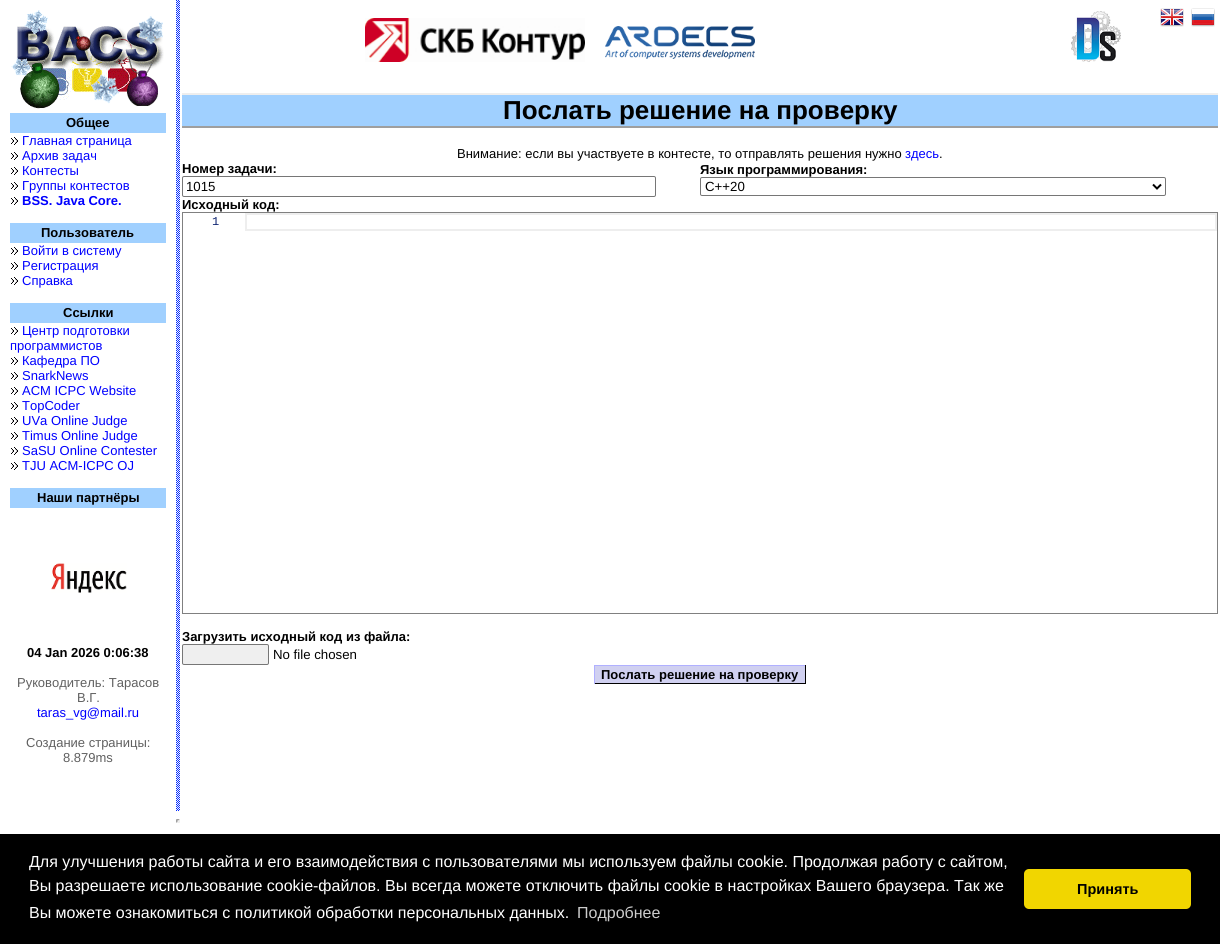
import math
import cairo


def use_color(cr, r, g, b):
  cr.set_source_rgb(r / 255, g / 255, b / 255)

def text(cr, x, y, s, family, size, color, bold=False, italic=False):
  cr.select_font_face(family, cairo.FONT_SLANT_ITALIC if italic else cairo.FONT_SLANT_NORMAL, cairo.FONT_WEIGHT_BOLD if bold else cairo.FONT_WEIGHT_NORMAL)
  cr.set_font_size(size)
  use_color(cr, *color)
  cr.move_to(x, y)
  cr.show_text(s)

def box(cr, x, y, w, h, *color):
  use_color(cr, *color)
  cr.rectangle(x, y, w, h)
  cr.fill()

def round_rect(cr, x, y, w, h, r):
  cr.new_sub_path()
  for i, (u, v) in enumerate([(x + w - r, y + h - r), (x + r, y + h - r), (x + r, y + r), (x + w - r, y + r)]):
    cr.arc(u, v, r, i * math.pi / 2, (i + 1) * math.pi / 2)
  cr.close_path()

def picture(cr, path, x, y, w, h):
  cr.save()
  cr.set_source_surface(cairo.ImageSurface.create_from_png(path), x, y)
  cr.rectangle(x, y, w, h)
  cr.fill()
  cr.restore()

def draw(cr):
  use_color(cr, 255, 255, 255)
  cr.paint()
  picture(cr, "img_01.png", 11, 10, 153, 99)
  box(cr, 10, 113, 156, 20, 160, 208, 255)
  picture(cr, "img_02.png", 11, 137, 7, 8)
  picture(cr, "img_02.png", 11, 152, 7, 8)
  picture(cr, "img_02.png", 11, 167, 7, 8)
  picture(cr, "img_02.png", 11, 182, 7, 8)
  picture(cr, "img_02.png", 11, 197, 7, 8)
  box(cr, 10, 223, 156, 20, 160, 208, 255)
  picture(cr, "img_02.png", 11, 247, 7, 8)
  picture(cr, "img_02.png", 11, 262, 7, 8)
  picture(cr, "img_02.png", 11, 277, 7, 8)
  box(cr, 10, 303, 156, 20, 160, 208, 255)
  picture(cr, "img_02.png", 11, 327, 7, 8)
  picture(cr, "img_02.png", 11, 357, 7, 8)
  picture(cr, "img_02.png", 11, 372, 7, 8)
  picture(cr, "img_02.png", 11, 387, 7, 8)
  picture(cr, "img_02.png", 11, 402, 7, 8)
  picture(cr, "img_02.png", 11, 417, 7, 8)
  picture(cr, "img_02.png", 11, 432, 7, 8)
  picture(cr, "img_02.png", 11, 447, 7, 8)
  picture(cr, "img_02.png", 11, 462, 7, 8)
  box(cr, 10, 488, 156, 20, 160, 208, 255)
  picture(cr, "img_03.png", 51, 563, 76, 30)
  picture(cr, "img_04.png", 176, 0, 4, 811)
  use_color(cr, 159, 159, 159)
  cr.new_path()
  cr.move_to(176, 819)
  cr.line_to(180, 819)
  cr.line_to(178, 821)
  cr.close_path()
  cr.fill()
  use_color(cr, 238, 238, 238)
  cr.new_path()
  cr.move_to(180, 819)
  cr.line_to(180, 823)
  cr.line_to(178, 821)
  cr.close_path()
  cr.fill()
  cr.new_path()
  cr.move_to(180, 823)
  cr.line_to(176, 823)
  cr.line_to(178, 821)
  cr.close_path()
  cr.fill()
  use_color(cr, 159, 159, 159)
  cr.new_path()
  cr.move_to(176, 823)
  cr.line_to(176, 819)
  cr.line_to(178, 821)
  cr.close_path()
  cr.fill()
  picture(cr, "img_05.png", 365, 18, 220, 44)
  picture(cr, "img_06.png", 605, 26, 150, 33)
  picture(cr, "img_07.png", 1071, 11, 50, 51)
  picture(cr, "img_08.png", 1160, 8, 24, 19)
  picture(cr, "img_09.png", 1191, 8, 24, 19)
  box(cr, 182, 95, 1036, 31, 160, 208, 255)
  box(cr, 182, 93, 1036, 2, 238, 238, 238)
  box(cr, 182, 126, 1036, 2, 159, 159, 159)
  round_rect(cr, 182.5, 176.5, 473, 20, 1.5)
  use_color(cr, 118, 118, 118)
  cr.set_line_width(1)
  cr.stroke()
  round_rect(cr, 700.5, 177.5, 465, 18, 1.5)
  cr.stroke()
  cr.new_path()
  cr.move_to(1153, 184.5)
  cr.line_to(1157, 188.5)
  cr.line_to(1161, 184.5)
  use_color(cr, 0, 0, 0)
  cr.set_line_width(2)
  cr.stroke()
  cr.rectangle(182.5, 212.5, 1035, 401)
  use_color(cr, 128, 128, 128)
  cr.set_line_width(1)
  cr.stroke()
  cr.rectangle(246, 214, 970, 16)
  use_color(cr, 238, 238, 238)
  cr.set_line_width(2)
  cr.stroke()
  use_color(cr, 239, 239, 239)
  round_rect(cr, 182.5, 644.5, 86, 20, 1.5)
  cr.fill_preserve()
  use_color(cr, 118, 118, 118)
  cr.set_line_width(1)
  cr.stroke()
  box(cr, 595, 666, 210, 17, 208, 208, 240)
  box(cr, 594, 665, 212, 1, 176, 176, 255)
  box(cr, 805, 665, 1, 19, 0, 0, 0)
  box(cr, 594, 683, 212, 1, 0, 0, 0)
  box(cr, 594, 665, 1, 19, 176, 176, 255)
  box(cr, 0, 834, 1220, 110, 0, 0, 0)
  use_color(cr, 241, 214, 0)
  round_rect(cr, 1024, 869, 167, 40, 5)
  cr.fill()
  text(cr, 66, 127, "Общее", "Liberation Sans", 13, (0, 0, 0), bold=True)
  text(cr, 22, 145, "Главная страница", "Liberation Sans", 13, (0, 0, 255))
  text(cr, 22, 160, "Архив задач", "Liberation Sans", 13, (0, 0, 255))
  text(cr, 22, 175, "Контесты", "Liberation Sans", 13, (0, 0, 255))
  text(cr, 22, 190, "Группы контестов", "Liberation Sans", 13, (0, 0, 255))
  text(cr, 22, 205, "BSS. Java Core.", "Liberation Sans", 13, (0, 0, 255), bold=True)
  text(cr, 41, 237, "Пользователь", "Liberation Sans", 13, (0, 0, 0), bold=True)
  text(cr, 22, 255, "Войти в систему", "Liberation Sans", 13, (0, 0, 255))
  text(cr, 22, 270, "Регистрация", "Liberation Sans", 13, (0, 0, 255))
  text(cr, 22, 285, "Справка", "Liberation Sans", 13, (0, 0, 255))
  text(cr, 63, 317, "Ссылки", "Liberation Sans", 13, (0, 0, 0), bold=True)
  text(cr, 22, 335, "Центр подготовки", "Liberation Sans", 13, (0, 0, 255))
  text(cr, 10, 350, "программистов", "Liberation Sans", 13, (0, 0, 255))
  text(cr, 22, 365, "Кафедра ПО", "Liberation Sans", 13, (0, 0, 255))
  text(cr, 22, 380, "SnarkNews", "Liberation Sans", 13, (0, 0, 255))
  text(cr, 22, 395, "ACM ICPC Website", "Liberation Sans", 13, (0, 0, 255))
  text(cr, 22, 410, "TopCoder", "Liberation Sans", 13, (0, 0, 255))
  text(cr, 22, 425, "UVa Online Judge", "Liberation Sans", 13, (0, 0, 255))
  text(cr, 22, 440, "Timus Online Judge", "Liberation Sans", 13, (0, 0, 255))
  text(cr, 22, 455, "SaSU Online Contester", "Liberation Sans", 13, (0, 0, 255))
  text(cr, 22, 470, "TJU ACM-ICPC OJ", "Liberation Sans", 13, (0, 0, 255))
  text(cr, 37, 502, "Наши партнёры", "Liberation Sans", 13, (0, 0, 0), bold=True)
  text(cr, 27, 657, "04 Jan 2026 0:06:38", "Liberation Sans", 13, (0, 0, 0), bold=True)
  text(cr, 17, 687, "Руководитель: Тарасов", "Liberation Sans", 13, (96, 96, 96))
  text(cr, 77, 702, "В.Г.", "Liberation Sans", 13, (96, 96, 96))
  text(cr, 37, 717, "taras_vg@mail.ru", "Liberation Sans", 13, (0, 0, 255))
  text(cr, 26, 747, "Cоздание страницы:", "Liberation Sans", 13, (96, 96, 96))
  text(cr, 63, 762, "8.879ms", "Liberation Sans", 13, (96, 96, 96))
  text(cr, 503, 119, "Послать решение на проверку", "Liberation Sans", 26, (0, 0, 0), bold=True)
  text(cr, 457, 158, "Внимание: если вы участвуете в контесте, то отправлять решения нужно", "Liberation Sans", 13, (0, 0, 0))
  text(cr, 905, 158, "здесь", "Liberation Sans", 13, (0, 0, 255))
  text(cr, 939, 158, ".", "Liberation Sans", 13, (0, 0, 0))
  text(cr, 182, 173, "Номер задачи:", "Liberation Sans", 13, (0, 0, 0), bold=True)
  text(cr, 186, 191, "1015", "Liberation Sans", 13.25, (0, 0, 0))
  text(cr, 700, 174, "Язык программирования:", "Liberation Sans", 13, (0, 0, 0), bold=True)
  text(cr, 705, 191, "C++20", "Liberation Sans", 13.25, (0, 0, 0))
  text(cr, 182, 209, "Исходный код:", "Liberation Sans", 13, (0, 0, 0), bold=True)
  text(cr, 212, 225, "1", "Liberation Mono", 12, (11, 33, 111))
  text(cr, 182, 641, "Загрузить исходный код из файла:", "Liberation Sans", 13, (0, 0, 0), bold=True)
  text(cr, 273, 659, "No file chosen", "Liberation Sans", 13.25, (0, 0, 0))
  text(cr, 601, 679, "Послать решение на проверку", "Liberation Sans", 13, (0, 0, 0), bold=True)
  text(cr, 29, 867, "Для улучшения работы сайта и его взаимодействия с пользователями мы используем файлы cookie. Продолжая работу с сайтом,", "Liberation Sans", 16, (255, 255, 255))
  text(cr, 29, 891, "Вы разрешаете использование cookie-файлов. Вы всегда можете отключить файлы cookie в настройках Вашего браузера. Так же", "Liberation Sans", 16, (255, 255, 255))
  text(cr, 29, 918, "Вы можете ознакомиться с политикой обработки персональных данных.", "Liberation Sans", 16, (255, 255, 255))
  text(cr, 577, 918, "Подробнее", "Liberation Sans", 16, (204, 204, 204))
  text(cr, 1077, 894, "Принять", "Liberation Sans", 14.5, (0, 0, 0), bold=True)


surface = cairo.ImageSurface(cairo.FORMAT_RGB24, 1220, 944)
cr = cairo.Context(surface)
options = cairo.FontOptions()
options.set_hint_metrics(cairo.HINT_METRICS_OFF)
options.set_hint_style(cairo.HINT_STYLE_NONE)
cr.set_font_options(options)
cr.set_miter_limit(4)
draw(cr)
surface.write_to_png("out.png")
